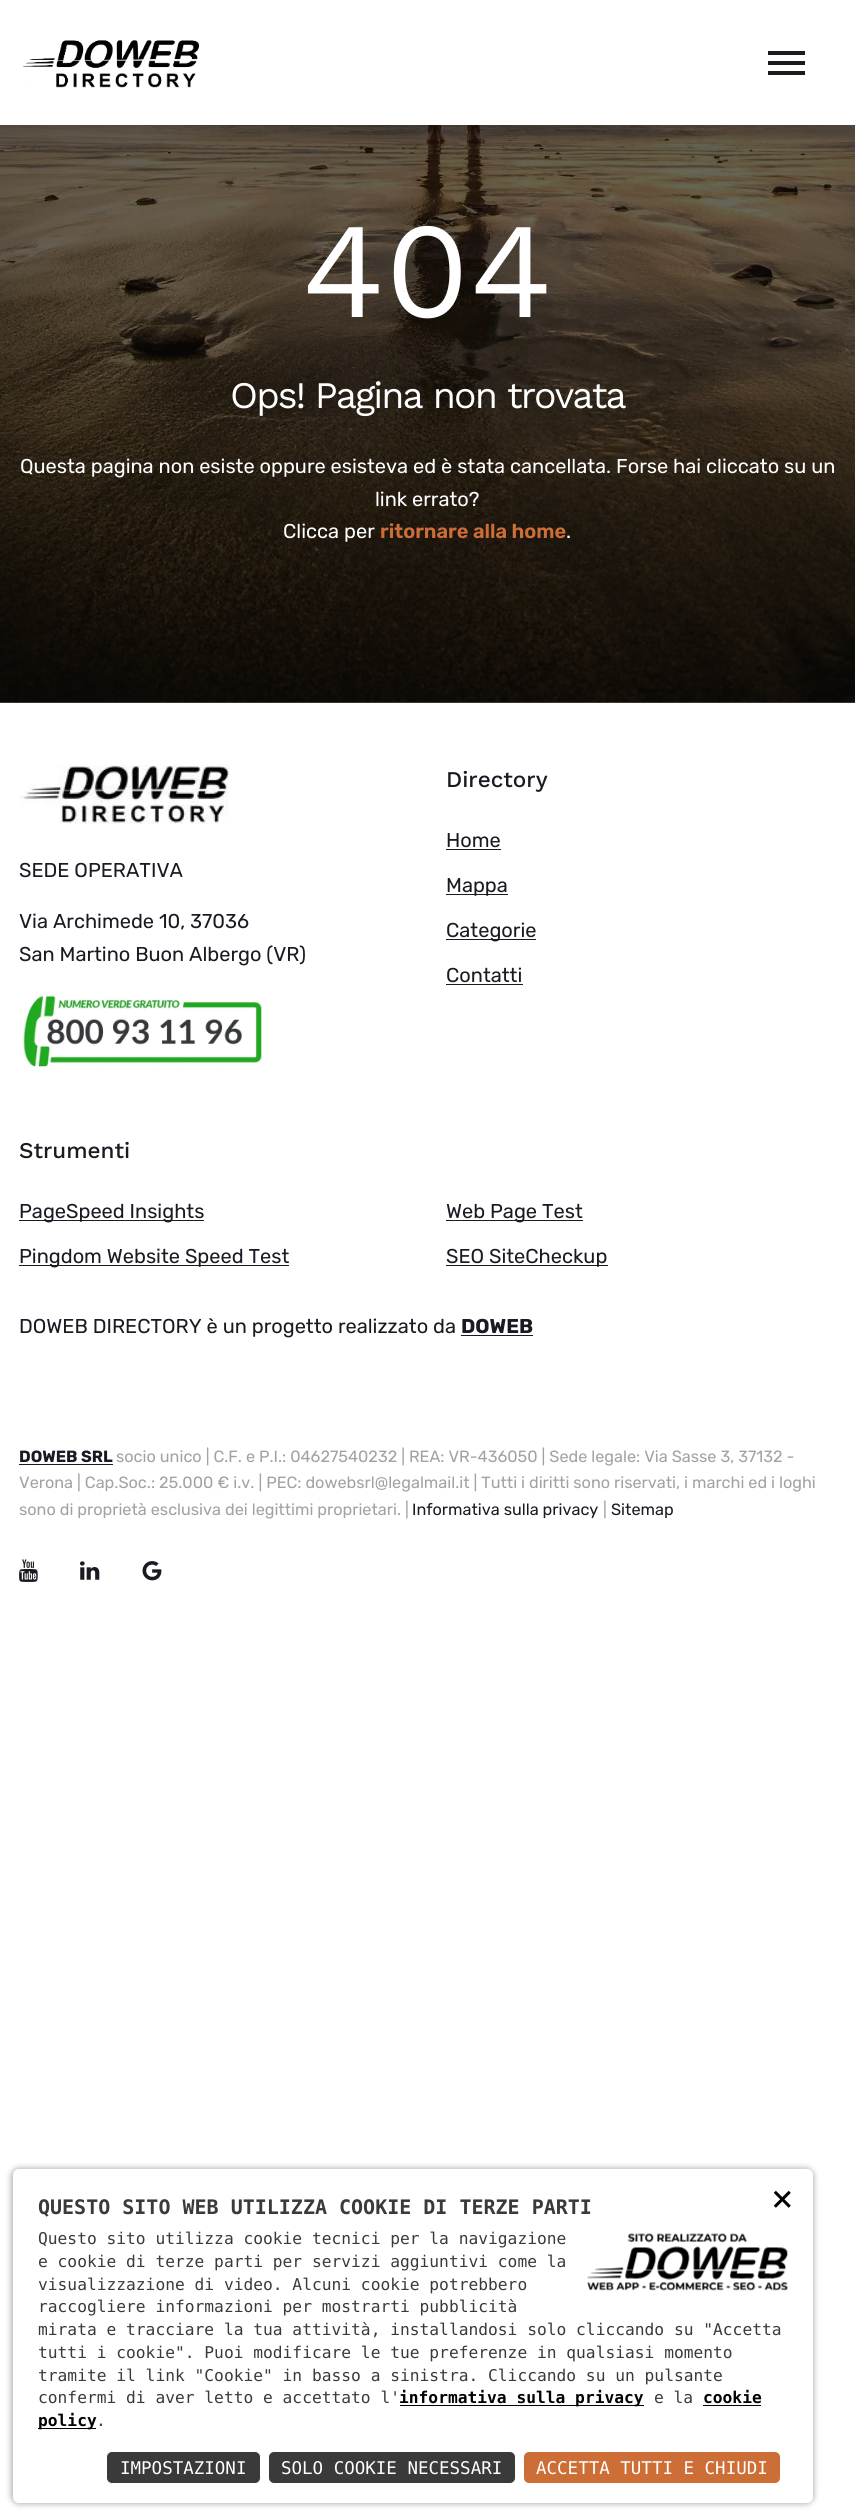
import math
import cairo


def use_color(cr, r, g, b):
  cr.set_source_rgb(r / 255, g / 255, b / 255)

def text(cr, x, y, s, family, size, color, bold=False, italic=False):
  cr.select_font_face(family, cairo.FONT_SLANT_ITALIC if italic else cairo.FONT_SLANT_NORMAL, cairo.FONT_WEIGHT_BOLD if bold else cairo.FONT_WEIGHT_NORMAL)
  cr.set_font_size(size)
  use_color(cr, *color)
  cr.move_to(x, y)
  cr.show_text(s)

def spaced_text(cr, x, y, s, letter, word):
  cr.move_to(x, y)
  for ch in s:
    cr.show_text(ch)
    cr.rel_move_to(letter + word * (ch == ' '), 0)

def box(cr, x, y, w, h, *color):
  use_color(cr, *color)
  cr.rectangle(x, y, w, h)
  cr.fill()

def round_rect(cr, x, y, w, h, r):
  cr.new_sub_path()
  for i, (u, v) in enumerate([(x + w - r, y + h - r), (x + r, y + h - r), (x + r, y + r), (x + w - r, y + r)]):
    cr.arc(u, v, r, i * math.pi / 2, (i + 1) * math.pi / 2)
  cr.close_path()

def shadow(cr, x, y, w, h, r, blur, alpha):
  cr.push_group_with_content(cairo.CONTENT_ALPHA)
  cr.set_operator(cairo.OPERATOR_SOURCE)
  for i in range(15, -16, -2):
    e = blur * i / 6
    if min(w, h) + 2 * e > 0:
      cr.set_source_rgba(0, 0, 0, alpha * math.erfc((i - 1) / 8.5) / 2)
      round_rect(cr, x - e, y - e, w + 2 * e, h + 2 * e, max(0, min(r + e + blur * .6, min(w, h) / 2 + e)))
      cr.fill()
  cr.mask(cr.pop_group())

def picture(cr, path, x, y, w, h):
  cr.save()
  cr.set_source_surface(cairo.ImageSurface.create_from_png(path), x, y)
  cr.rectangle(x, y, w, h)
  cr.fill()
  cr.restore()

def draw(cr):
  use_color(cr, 255, 255, 255)
  cr.paint()
  box(cr, 0, 702, 855, 1, 102, 102, 102)
  picture(cr, "img_02.png", 0, 125, 855, 578)
  use_color(cr, 0, 0, 0)
  shadow(cr, 0, 13, 855, 125, 0, 20, 0.1)
  box(cr, 0, 0, 855, 125, 255, 255, 255)
  picture(cr, "img_01.png", 23, 40, 177, 48)
  box(cr, 768, 61, 37, 4, 26, 26, 35)
  box(cr, 768, 51, 37, 4, 26, 26, 35)
  box(cr, 768, 71, 37, 4, 26, 26, 35)
  picture(cr, "img_03.png", 19, 765, 210, 59)
  picture(cr, "img_04.png", 22, 995, 240, 73)
  box(cr, 446, 849, 55, 1, 26, 26, 35)
  box(cr, 446, 894, 62, 1, 26, 26, 35)
  box(cr, 446, 939, 90, 1, 26, 26, 35)
  box(cr, 446, 984, 77, 1, 26, 26, 35)
  box(cr, 19, 1220, 185, 1, 26, 26, 35)
  box(cr, 19, 1265, 270, 1, 26, 26, 35)
  box(cr, 446, 1220, 137, 1, 26, 26, 35)
  box(cr, 446, 1265, 162, 1, 26, 26, 35)
  box(cr, 461, 1335, 72, 1, 26, 26, 35)
  box(cr, 19, 1464, 94, 1, 26, 26, 35)
  picture(cr, "img_05.png", 19, 1559, 19, 23)
  picture(cr, "img_06.png", 80, 1561, 20, 19)
  picture(cr, "img_07.png", 142, 1561, 20, 20)
  use_color(cr, 0, 0, 0)
  shadow(cr, 11, 2168, 803, 336, 8, 3, 0.3)
  use_color(cr, 255, 255, 255)
  round_rect(cr, 13, 2169, 800, 334, 6)
  cr.fill()
  picture(cr, "img_08.png", 587, 2233, 201, 58)
  box(cr, 400, 2405, 244, 1, 0, 0, 0)
  box(cr, 703, 2405, 58, 1, 0, 0, 0)
  box(cr, 38, 2428, 58, 1, 0, 0, 0)
  use_color(cr, 58, 58, 59)
  round_rect(cr, 106.5, 2451.5, 154, 32, 5.5)
  cr.fill_preserve()
  use_color(cr, 255, 255, 255)
  cr.set_line_width(1)
  cr.stroke()
  use_color(cr, 58, 58, 59)
  round_rect(cr, 268.5, 2451.5, 247, 32, 5.5)
  cr.fill_preserve()
  use_color(cr, 255, 255, 255)
  cr.stroke()
  use_color(cr, 205, 110, 55)
  round_rect(cr, 523.5, 2451.5, 257, 32, 5.5)
  cr.fill_preserve()
  use_color(cr, 255, 255, 255)
  cr.stroke()
  text(cr, 302, 317, "404", "Work Sans", 136, (255, 255, 255))
  cr.set_font_size(37.5)
  spaced_text(cr, 230, 408, "Ops! Pagina non trovata", -1.9, 0)
  text(cr, 20, 473, "Questa pagina non esiste oppure esisteva ed è stata cancellata. Forse hai cliccato su un", "Rubik", 20, (255, 255, 255))
  text(cr, 375, 506, "link errato?", "Rubik", 20, (255, 255, 255))
  text(cr, 283, 538, "Clicca per", "Rubik", 20, (255, 255, 255))
  text(cr, 380, 538, "ritornare alla home", "Rubik SemiBold", 20, (205, 110, 55))
  text(cr, 566, 538, ".", "Rubik", 20, (255, 255, 255))
  text(cr, 19, 877, "SEDE OPERATIVA", "Rubik", 20, (26, 26, 35))
  text(cr, 19, 928, "Via Archimede 10, 37036", "Rubik", 20, (26, 26, 35))
  text(cr, 19, 961, "San Martino Buon Albergo (VR)", "Rubik", 20, (26, 26, 35))
  text(cr, 446, 787, "Directory", "Work Sans Medium", 22.5, (26, 26, 35))
  text(cr, 446, 847, "Home", "Rubik", 20, (26, 26, 35))
  text(cr, 446, 892, "Mappa", "Rubik", 20, (26, 26, 35))
  text(cr, 446, 937, "Categorie", "Rubik", 20, (26, 26, 35))
  text(cr, 446, 982, "Contatti", "Rubik", 20, (26, 26, 35))
  text(cr, 19, 1158, "Strumenti", "Work Sans Medium", 22.5, (26, 26, 35))
  text(cr, 19, 1218, "PageSpeed Insights", "Rubik", 20, (26, 26, 35))
  text(cr, 19, 1263, "Pingdom Website Speed Test", "Rubik", 20, (26, 26, 35))
  text(cr, 446, 1218, "Web Page Test", "Rubik", 20, (26, 26, 35))
  text(cr, 446, 1263, "SEO SiteCheckup", "Rubik", 20, (26, 26, 35))
  text(cr, 19, 1333, "DOWEB DIRECTORY è un progetto realizzato da", "Rubik", 20, (26, 26, 35))
  text(cr, 461, 1333, "DOWEB", "Rubik", 20, (26, 26, 35), bold=True)
  text(cr, 19, 1462, "DOWEB SRL", "Rubik", 16.25, (26, 26, 35), bold=True)
  text(cr, 116, 1462, "socio unico | C.F. e P.I.: 04627540232 | REA: VR-436050 | Sede legale: Via Sasse 3, 37132 -", "Rubik", 16.25, (162, 162, 162))
  text(cr, 19, 1488, "Verona | Cap.Soc.: 25.000 € i.v. | PEC: dowebsrl@legalmail.it | Tutti i diritti sono riservati, i marchi ed i loghi", "Rubik", 16.25, (162, 162, 162))
  text(cr, 19, 1515, "sono di proprietà esclusiva dei legittimi proprietari. |", "Rubik", 16.25, (162, 162, 162))
  text(cr, 412, 1515, "Informativa sulla privacy", "Rubik", 16.25, (26, 26, 35))
  text(cr, 603, 1515, "|", "Rubik", 16.25, (162, 162, 162))
  text(cr, 611, 1515, "Sitemap", "Rubik", 16.25, (26, 26, 35))
  text(cr, 38, 2214, "QUESTO SITO WEB UTILIZZA COOKIE DI TERZE PARTI", "DejaVu Sans Mono", 20, (58, 58, 59), bold=True)
  text(cr, 771, 2211, "×", "DejaVu Sans Mono", 37.5, (0, 0, 0))
  text(cr, 38, 2244, "Questo sito utilizza cookie tecnici per la navigazione", "DejaVu Sans Mono", 16.25, (58, 58, 59))
  text(cr, 38, 2267, "e cookie di terze parti per servizi aggiuntivi come la", "DejaVu Sans Mono", 16.25, (58, 58, 59))
  text(cr, 38, 2290, "visualizzazione di video. Alcuni cookie potrebbero", "DejaVu Sans Mono", 16.25, (58, 58, 59))
  text(cr, 38, 2312, "raccogliere informazioni per mostrarti pubblicità", "DejaVu Sans Mono", 16.25, (58, 58, 59))
  text(cr, 38, 2335, "mirata e tracciare la tua attività, installandosi solo cliccando su \"Accetta", "DejaVu Sans Mono", 16.25, (58, 58, 59))
  text(cr, 38, 2358, "tutti i cookie\". Puoi modificare le tue preferenze in qualsiasi momento", "DejaVu Sans Mono", 16.25, (58, 58, 59))
  text(cr, 38, 2381, "tramite il link \"Cookie\" in basso a sinistra. Cliccando su un pulsante", "DejaVu Sans Mono", 16.25, (58, 58, 59))
  text(cr, 38, 2403, "confermi di aver letto e accettato l'", "DejaVu Sans Mono", 16.25, (58, 58, 59))
  text(cr, 399, 2403, "informativa sulla privacy", "DejaVu Sans Mono", 16.25, (0, 0, 0), bold=True)
  text(cr, 654, 2403, "e la", "DejaVu Sans Mono", 16.25, (58, 58, 59))
  text(cr, 703, 2403, "cookie", "DejaVu Sans Mono", 16.25, (0, 0, 0), bold=True)
  text(cr, 38, 2426, "policy", "DejaVu Sans Mono", 16.25, (0, 0, 0), bold=True)
  text(cr, 96, 2426, ".", "DejaVu Sans Mono", 16.25, (58, 58, 59))
  text(cr, 120, 2474, "IMPOSTAZIONI", "DejaVu Sans Mono", 17.5, (255, 255, 255))
  text(cr, 281, 2474, "SOLO COOKIE NECESSARI", "DejaVu Sans Mono", 17.5, (255, 255, 255))
  text(cr, 536, 2474, "ACCETTA TUTTI E CHIUDI", "DejaVu Sans Mono", 17.5, (255, 255, 255))


surface = cairo.ImageSurface(cairo.FORMAT_RGB24, 855, 2515)
cr = cairo.Context(surface)
options = cairo.FontOptions()
options.set_hint_metrics(cairo.HINT_METRICS_OFF)
options.set_hint_style(cairo.HINT_STYLE_NONE)
cr.set_font_options(options)
cr.set_miter_limit(4)
draw(cr)
surface.write_to_png("out.png")
